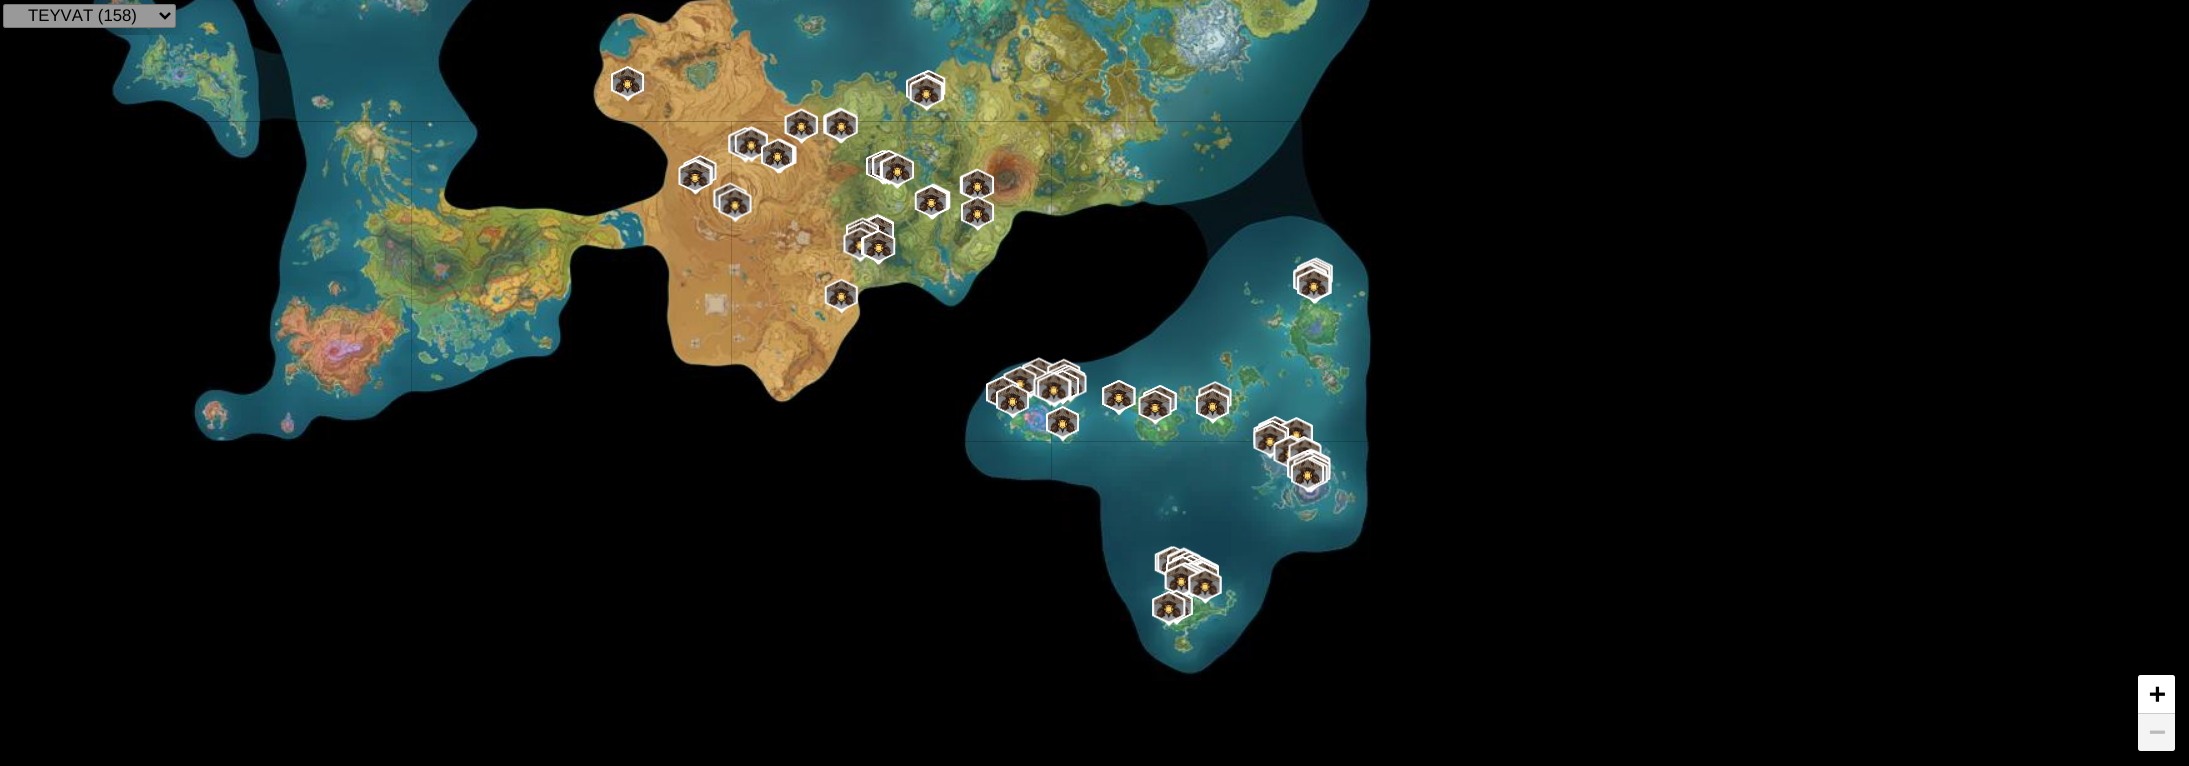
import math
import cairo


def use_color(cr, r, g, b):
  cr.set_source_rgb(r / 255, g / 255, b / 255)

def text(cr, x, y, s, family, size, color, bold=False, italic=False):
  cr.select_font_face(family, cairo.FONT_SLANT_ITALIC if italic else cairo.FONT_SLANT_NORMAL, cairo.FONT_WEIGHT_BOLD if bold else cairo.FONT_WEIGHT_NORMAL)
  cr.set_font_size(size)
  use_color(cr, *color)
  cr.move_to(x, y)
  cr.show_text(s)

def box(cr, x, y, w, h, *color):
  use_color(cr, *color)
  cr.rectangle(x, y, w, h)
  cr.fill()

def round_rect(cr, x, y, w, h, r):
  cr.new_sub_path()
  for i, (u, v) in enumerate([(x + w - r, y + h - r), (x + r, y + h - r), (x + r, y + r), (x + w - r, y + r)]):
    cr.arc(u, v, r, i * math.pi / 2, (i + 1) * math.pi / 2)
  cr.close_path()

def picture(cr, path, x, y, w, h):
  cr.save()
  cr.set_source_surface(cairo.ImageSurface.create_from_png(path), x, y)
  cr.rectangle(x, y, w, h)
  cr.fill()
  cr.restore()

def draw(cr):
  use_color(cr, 0, 0, 0)
  cr.paint()
  picture(cr, "img_01.png", 91, 0, 320, 121)
  gradient = cairo.LinearGradient(0, 18, 188, 17)
  gradient.add_color_stop_rgba(0, 0, 0, 0, 0.7)
  gradient.add_color_stop_rgba(1, 0, 0, 0, 0)
  cr.set_source(gradient)
  cr.rectangle(91, 0, 91, 35)
  cr.fill()
  use_color(cr, 153, 153, 153)
  round_rect(cr, 3.5, 4.5, 172, 23, 2)
  cr.fill_preserve()
  use_color(cr, 118, 118, 118)
  cr.set_line_width(1)
  cr.stroke()
  cr.new_path()
  cr.move_to(160, 13)
  cr.line_to(165, 18)
  cr.line_to(170, 13)
  use_color(cr, 0, 0, 0)
  cr.set_line_width(2.5)
  cr.stroke()
  picture(cr, "img_02.png", 411, 0, 320, 121)
  picture(cr, "img_03.png", 731, 0, 320, 121)
  picture(cr, "img_04.png", 1051, 0, 320, 121)
  picture(cr, "img_07.png", 731, 121, 321, 321)
  picture(cr, "img_06.png", 411, 121, 321, 280)
  picture(cr, "img_05.png", 191, 121, 221, 321)
  picture(cr, "img_08.png", 1051, 121, 321, 321)
  cr.set_source_rgba(0, 0, 0, 0.75)
  cr.rectangle(212, 441, 79, 1)
  cr.fill()
  picture(cr, "img_09.png", 961, 441, 91, 41)
  picture(cr, "img_10.png", 1051, 441, 320, 240)
  picture(cr, "img_11.png", 611, 66, 33, 36)
  picture(cr, "img_12.png", 611, 66, 33, 36)
  picture(cr, "img_13.png", 911, 70, 33, 9)
  picture(cr, "img_14.png", 912, 70, 34, 25)
  picture(cr, "img_15.png", 906, 72, 33, 36)
  picture(cr, "img_16.png", 911, 75, 33, 35)
  picture(cr, "img_17.png", 909, 76, 34, 36)
  picture(cr, "img_18.png", 784, 108, 34, 36)
  picture(cr, "img_19.png", 823, 107, 34, 36)
  picture(cr, "img_20.png", 784, 108, 34, 36)
  picture(cr, "img_21.png", 823, 108, 34, 36)
  picture(cr, "img_22.png", 734, 126, 34, 36)
  picture(cr, "img_23.png", 824, 108, 34, 36)
  picture(cr, "img_24.png", 728, 127, 22, 36)
  picture(cr, "img_25.png", 728, 127, 22, 36)
  picture(cr, "img_26.png", 734, 127, 34, 36)
  picture(cr, "img_29.png", 763, 138, 34, 36)
  picture(cr, "img_28.png", 762, 138, 34, 36)
  picture(cr, "img_27.png", 761, 138, 33, 36)
  picture(cr, "img_34.png", 874, 150, 14, 35)
  picture(cr, "img_30.png", 866, 150, 21, 35)
  picture(cr, "img_31.png", 872, 150, 34, 35)
  picture(cr, "img_32.png", 872, 150, 34, 35)
  picture(cr, "img_33.png", 872, 150, 34, 35)
  picture(cr, "img_35.png", 879, 153, 34, 36)
  picture(cr, "img_36.png", 683, 155, 34, 35)
  picture(cr, "img_37.png", 881, 153, 33, 36)
  picture(cr, "img_38.png", 679, 158, 34, 36)
  picture(cr, "img_39.png", 678, 160, 34, 35)
  picture(cr, "img_40.png", 959, 168, 34, 32)
  picture(cr, "img_41.png", 713, 182, 34, 36)
  picture(cr, "img_44.png", 917, 183, 34, 36)
  picture(cr, "img_42.png", 916, 183, 33, 36)
  picture(cr, "img_43.png", 961, 168, 33, 32)
  picture(cr, "img_48.png", 916, 185, 33, 35)
  picture(cr, "img_45.png", 914, 185, 34, 35)
  picture(cr, "img_46.png", 718, 187, 34, 36)
  picture(cr, "img_47.png", 865, 213, 29, 10)
  picture(cr, "img_49.png", 961, 196, 33, 36)
  picture(cr, "img_51.png", 867, 215, 27, 23)
  picture(cr, "img_50.png", 846, 217, 33, 18)
  picture(cr, "img_52.png", 846, 221, 33, 14)
  picture(cr, "img_53.png", 843, 227, 30, 36)
  picture(cr, "img_54.png", 861, 230, 33, 35)
  picture(cr, "img_55.png", 862, 230, 34, 35)
  picture(cr, "img_56.png", 1299, 257, 34, 26)
  picture(cr, "img_57.png", 1297, 258, 34, 19)
  picture(cr, "img_58.png", 1297, 258, 34, 19)
  picture(cr, "img_59.png", 1297, 261, 34, 16)
  picture(cr, "img_60.png", 1293, 262, 34, 36)
  picture(cr, "img_61.png", 1293, 264, 34, 35)
  picture(cr, "img_62.png", 1293, 264, 34, 35)
  picture(cr, "img_63.png", 1297, 268, 34, 36)
  picture(cr, "img_65.png", 1298, 268, 34, 36)
  picture(cr, "img_67.png", 1298, 268, 34, 36)
  picture(cr, "img_64.png", 1297, 268, 33, 36)
  picture(cr, "img_66.png", 824, 278, 34, 36)
  picture(cr, "img_68.png", 1022, 357, 32, 17)
  picture(cr, "img_69.png", 1047, 358, 34, 16)
  picture(cr, "img_70.png", 1013, 363, 34, 36)
  picture(cr, "img_71.png", 1048, 363, 34, 11)
  picture(cr, "img_72.png", 1003, 366, 34, 29)
  picture(cr, "img_73.png", 1052, 365, 34, 35)
  picture(cr, "img_74.png", 1055, 367, 32, 36)
  picture(cr, "img_75.png", 1055, 370, 24, 35)
  picture(cr, "img_76.png", 1033, 371, 34, 36)
  picture(cr, "img_79.png", 1038, 372, 34, 36)
  picture(cr, "img_77.png", 1037, 372, 34, 36)
  picture(cr, "img_78.png", 986, 376, 33, 36)
  picture(cr, "img_80.png", 986, 376, 33, 36)
  picture(cr, "img_81.png", 1102, 380, 34, 35)
  picture(cr, "img_82.png", 1102, 380, 34, 35)
  picture(cr, "img_83.png", 1102, 380, 34, 35)
  picture(cr, "img_84.png", 996, 383, 33, 36)
  picture(cr, "img_85.png", 1102, 380, 34, 35)
  picture(cr, "img_86.png", 1143, 385, 34, 35)
  picture(cr, "img_87.png", 1198, 381, 34, 27)
  picture(cr, "img_88.png", 1143, 385, 34, 35)
  picture(cr, "img_89.png", 1143, 385, 34, 35)
  picture(cr, "img_90.png", 1196, 388, 33, 36)
  picture(cr, "img_91.png", 1046, 406, 33, 36)
  picture(cr, "img_92.png", 1138, 390, 34, 35)
  picture(cr, "img_93.png", 1196, 388, 33, 36)
  picture(cr, "img_94.png", 1046, 406, 33, 36)
  picture(cr, "img_95.png", 1258, 416, 31, 10)
  picture(cr, "img_96.png", 1258, 416, 31, 10)
  picture(cr, "img_97.png", 1280, 417, 33, 25)
  picture(cr, "img_98.png", 1280, 417, 33, 25)
  picture(cr, "img_100.png", 1280, 417, 33, 25)
  picture(cr, "img_99.png", 1253, 420, 28, 25)
  picture(cr, "img_101.png", 1256, 420, 33, 35)
  picture(cr, "img_102.png", 1253, 423, 34, 36)
  picture(cr, "img_103.png", 1274, 435, 26, 25)
  picture(cr, "img_104.png", 1296, 436, 25, 10)
  picture(cr, "img_106.png", 1296, 436, 25, 10)
  picture(cr, "img_105.png", 1273, 437, 28, 33)
  picture(cr, "img_107.png", 1288, 437, 34, 23)
  picture(cr, "img_108.png", 1293, 448, 34, 9)
  picture(cr, "img_109.png", 1294, 448, 34, 9)
  picture(cr, "img_114.png", 1309, 450, 13, 5)
  picture(cr, "img_113.png", 1299, 450, 14, 5)
  picture(cr, "img_110.png", 1291, 450, 21, 9)
  picture(cr, "img_116.png", 1309, 450, 22, 25)
  picture(cr, "img_117.png", 1292, 452, 34, 6)
  picture(cr, "img_111.png", 1291, 450, 29, 9)
  picture(cr, "img_112.png", 1291, 450, 29, 9)
  picture(cr, "img_115.png", 1287, 451, 23, 28)
  picture(cr, "img_119.png", 1298, 452, 30, 7)
  picture(cr, "img_120.png", 1298, 452, 30, 7)
  picture(cr, "img_122.png", 1306, 452, 25, 25)
  picture(cr, "img_121.png", 1287, 453, 22, 35)
  picture(cr, "img_118.png", 1293, 452, 34, 13)
  picture(cr, "img_123.png", 1297, 455, 34, 35)
  picture(cr, "img_125.png", 1293, 457, 34, 36)
  picture(cr, "img_126.png", 1293, 457, 34, 36)
  picture(cr, "img_127.png", 1294, 457, 34, 36)
  picture(cr, "img_124.png", 1291, 457, 33, 36)
  picture(cr, "img_128.png", 1154, 546, 26, 31)
  picture(cr, "img_129.png", 1157, 546, 25, 30)
  picture(cr, "img_130.png", 1167, 547, 34, 17)
  picture(cr, "img_131.png", 1167, 548, 34, 16)
  picture(cr, "img_132.png", 1167, 548, 34, 16)
  picture(cr, "img_133.png", 1172, 551, 34, 11)
  picture(cr, "img_134.png", 1172, 552, 34, 10)
  picture(cr, "img_135.png", 1185, 553, 27, 10)
  picture(cr, "img_136.png", 1184, 554, 27, 9)
  picture(cr, "img_137.png", 1184, 555, 16, 8)
  picture(cr, "img_138.png", 1166, 556, 29, 14)
  picture(cr, "img_139.png", 1166, 556, 29, 14)
  picture(cr, "img_140.png", 1166, 556, 29, 16)
  picture(cr, "img_143.png", 1187, 557, 32, 10)
  picture(cr, "img_141.png", 1186, 557, 32, 10)
  picture(cr, "img_142.png", 1186, 557, 32, 10)
  picture(cr, "img_144.png", 1188, 559, 31, 11)
  picture(cr, "img_145.png", 1195, 561, 23, 9)
  picture(cr, "img_146.png", 1195, 561, 23, 9)
  picture(cr, "img_147.png", 1195, 561, 23, 9)
  picture(cr, "img_148.png", 1195, 561, 24, 9)
  picture(cr, "img_149.png", 1195, 561, 24, 9)
  picture(cr, "img_151.png", 1195, 561, 24, 15)
  picture(cr, "img_154.png", 1187, 562, 22, 36)
  picture(cr, "img_155.png", 1187, 562, 21, 36)
  picture(cr, "img_150.png", 1168, 562, 34, 34)
  picture(cr, "img_152.png", 1168, 562, 34, 34)
  picture(cr, "img_153.png", 1168, 562, 34, 34)
  picture(cr, "img_156.png", 1164, 563, 34, 32)
  picture(cr, "img_158.png", 1166, 563, 33, 33)
  picture(cr, "img_157.png", 1164, 563, 34, 32)
  picture(cr, "img_159.png", 1188, 568, 34, 36)
  picture(cr, "img_160.png", 1188, 568, 34, 36)
  picture(cr, "img_161.png", 1170, 590, 23, 35)
  picture(cr, "img_162.png", 1170, 590, 23, 35)
  picture(cr, "img_163.png", 1152, 591, 34, 36)
  picture(cr, "img_164.png", 1152, 591, 34, 36)
  use_color(cr, 255, 255, 255)
  cr.new_path()
  cr.move_to(2140.5, 675)
  cr.line_to(2172.5, 675)
  cr.curve_to(2174, 675, 2175, 676, 2175, 677.5)
  cr.line_to(2175, 714)
  cr.line_to(2138, 714)
  cr.line_to(2138, 677.5)
  cr.curve_to(2138, 676, 2139, 675, 2140.5, 675)
  cr.close_path()
  cr.fill()
  box(cr, 2138, 713, 37, 1, 204, 204, 204)
  use_color(cr, 244, 244, 244)
  cr.new_path()
  cr.move_to(2138, 714)
  cr.line_to(2175, 714)
  cr.line_to(2175, 748.5)
  cr.curve_to(2175, 750, 2174, 751, 2172.5, 751)
  cr.line_to(2140.5, 751)
  cr.curve_to(2139, 751, 2138, 750, 2138, 748.5)
  cr.close_path()
  cr.fill()
  text(cr, 28, 21, "TEYVAT (158)", "Liberation Sans", 16.75, (0, 0, 0))
  text(cr, 2149, 703, "+", "DejaVu Sans Mono", 28, (0, 0, 0), bold=True)
  text(cr, 2149, 741, "−", "DejaVu Sans Mono", 28, (187, 187, 187), bold=True)


surface = cairo.ImageSurface(cairo.FORMAT_RGB24, 2189, 766)
cr = cairo.Context(surface)
options = cairo.FontOptions()
options.set_hint_metrics(cairo.HINT_METRICS_OFF)
options.set_hint_style(cairo.HINT_STYLE_NONE)
cr.set_font_options(options)
cr.set_miter_limit(4)
draw(cr)
surface.write_to_png("out.png")
